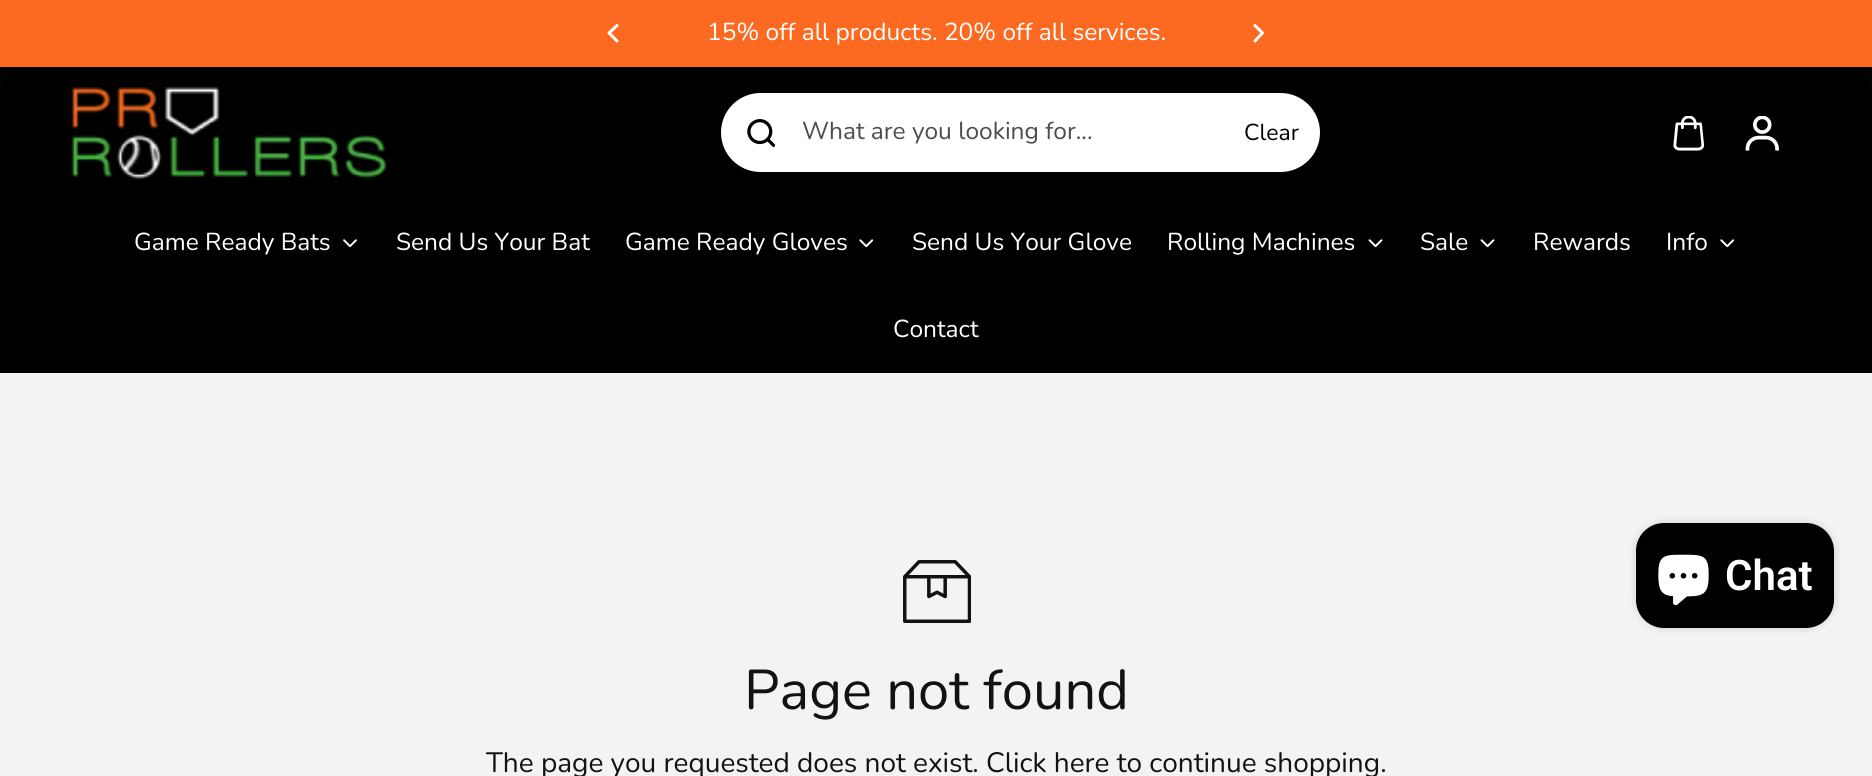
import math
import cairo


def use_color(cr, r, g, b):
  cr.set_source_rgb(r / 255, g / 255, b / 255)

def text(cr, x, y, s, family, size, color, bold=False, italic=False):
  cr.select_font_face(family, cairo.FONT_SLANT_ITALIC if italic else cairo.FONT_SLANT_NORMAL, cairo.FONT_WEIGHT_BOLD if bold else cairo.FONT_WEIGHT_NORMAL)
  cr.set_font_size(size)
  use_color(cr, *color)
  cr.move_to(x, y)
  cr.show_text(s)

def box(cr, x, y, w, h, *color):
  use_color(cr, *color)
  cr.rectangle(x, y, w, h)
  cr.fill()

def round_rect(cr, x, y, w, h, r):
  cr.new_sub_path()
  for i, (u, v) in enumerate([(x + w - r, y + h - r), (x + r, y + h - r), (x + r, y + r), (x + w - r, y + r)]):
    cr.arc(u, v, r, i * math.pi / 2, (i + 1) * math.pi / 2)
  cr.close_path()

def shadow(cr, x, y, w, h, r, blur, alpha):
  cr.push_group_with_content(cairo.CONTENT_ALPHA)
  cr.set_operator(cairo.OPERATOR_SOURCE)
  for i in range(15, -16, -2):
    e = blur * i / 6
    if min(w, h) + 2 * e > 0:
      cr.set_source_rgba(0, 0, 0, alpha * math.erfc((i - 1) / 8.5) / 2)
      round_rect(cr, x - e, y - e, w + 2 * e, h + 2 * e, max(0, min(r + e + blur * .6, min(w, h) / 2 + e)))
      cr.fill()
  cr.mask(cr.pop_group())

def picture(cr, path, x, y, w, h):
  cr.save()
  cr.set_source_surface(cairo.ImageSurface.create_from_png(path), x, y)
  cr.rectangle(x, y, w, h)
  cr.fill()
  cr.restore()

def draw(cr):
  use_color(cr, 243, 243, 243)
  cr.paint()
  box(cr, 0, 0, 1872, 67, 252, 106, 33)
  cr.new_path()
  cr.move_to(617, 25.5)
  cr.line_to(609, 33)
  cr.line_to(617, 41)
  use_color(cr, 255, 255, 255)
  cr.set_line_width(3)
  cr.set_line_cap(cairo.LINE_CAP_ROUND)
  cr.set_line_join(cairo.LINE_JOIN_ROUND)
  cr.stroke()
  cr.new_path()
  cr.move_to(1255, 25.5)
  cr.line_to(1262.5, 33)
  cr.line_to(1255, 41)
  cr.stroke()
  box(cr, 0, 67, 1872, 35, 2, 2, 2)
  use_color(cr, 0, 0, 0)
  cr.new_path()
  cr.move_to(35, 67)
  cr.line_to(1838, 67)
  cr.curve_to(1857.5, 67, 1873, 82.5, 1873, 102)
  cr.line_to(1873, 198)
  cr.line_to(0, 198)
  cr.line_to(0, 102)
  cr.curve_to(0, 82.5, 15.5, 67, 35, 67)
  cr.close_path()
  cr.fill()
  picture(cr, "img_01.png", 71, 87, 316, 92)
  use_color(cr, 255, 255, 255)
  round_rect(cr, 721, 93, 599, 79, 39.5)
  cr.fill()
  picture(cr, "img_02.png", 747, 119, 28, 28)
  picture(cr, "img_03.png", 1673, 116, 32, 35)
  picture(cr, "img_04.png", 1745, 116, 34, 35)
  box(cr, 0, 198, 1872, 175, 0, 0, 0)
  picture(cr, "img_05.png", 343, 239, 14, 9)
  picture(cr, "img_06.png", 859, 239, 15, 9)
  picture(cr, "img_07.png", 1368, 239, 15, 9)
  picture(cr, "img_07.png", 1480, 239, 15, 9)
  picture(cr, "img_06.png", 1720, 239, 15, 9)
  picture(cr, "img_08.png", 903, 560, 68, 63)
  use_color(cr, 0, 0, 0)
  shadow(cr, 1636, 523, 198, 105, 28, 4.5, 0.15)
  use_color(cr, 0, 0, 0)
  round_rect(cr, 1636, 523, 198, 105, 28)
  cr.fill()
  picture(cr, "img_09.png", 1658, 554, 51, 52)
  text(cr, 707, 40, "15% off all products. 20% off all services.", "Nunito", 24.5, (255, 255, 255))
  text(cr, 802, 139, "What are you looking for...", "Nunito", 24.5, (77, 77, 77))
  text(cr, 1244, 140, "Clear", "Nunito", 23, (0, 0, 0))
  text(cr, 134, 250, "Game Ready Bats", "Nunito", 24.5, (255, 255, 255))
  text(cr, 396, 250, "Send Us Your Bat", "Nunito", 24.5, (255, 255, 255))
  text(cr, 625, 250, "Game Ready Gloves", "Nunito", 24.5, (255, 255, 255))
  text(cr, 912, 250, "Send Us Your Glove", "Nunito", 24.5, (255, 255, 255))
  text(cr, 1167, 250, "Rolling Machines", "Nunito", 24.5, (255, 255, 255))
  text(cr, 1420, 250, "Sale", "Nunito", 24.5, (255, 255, 255))
  text(cr, 1533, 250, "Rewards", "Nunito", 24.5, (255, 255, 255))
  text(cr, 1666, 250, "Info", "Nunito", 24.5, (255, 255, 255))
  text(cr, 893, 337, "Contact", "Nunito", 24.5, (255, 255, 255))
  text(cr, 744, 709, "Page not found", "Nunito", 56, (18, 18, 18))
  text(cr, 486, 772, "The page you requested does not exist. Click here to continue shopping.", "Nunito", 28, (18, 18, 18))
  text(cr, 1725, 590, "Chat", "Roboto SemiBold", 42, (255, 255, 255))


surface = cairo.ImageSurface(cairo.FORMAT_RGB24, 1872, 776)
cr = cairo.Context(surface)
options = cairo.FontOptions()
options.set_hint_metrics(cairo.HINT_METRICS_OFF)
options.set_hint_style(cairo.HINT_STYLE_NONE)
cr.set_font_options(options)
cr.set_miter_limit(4)
draw(cr)
surface.write_to_png("out.png")
